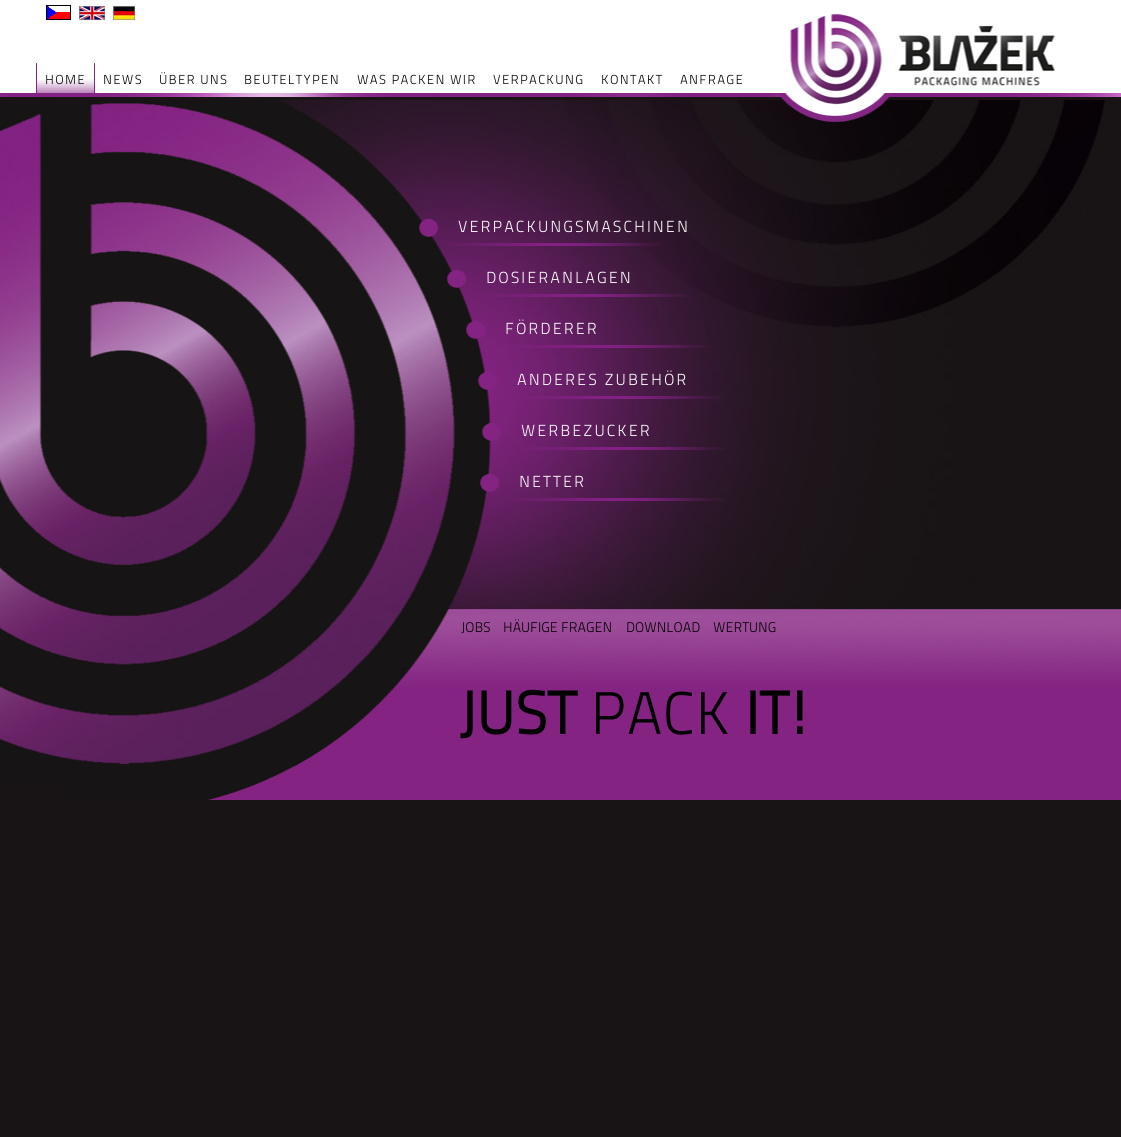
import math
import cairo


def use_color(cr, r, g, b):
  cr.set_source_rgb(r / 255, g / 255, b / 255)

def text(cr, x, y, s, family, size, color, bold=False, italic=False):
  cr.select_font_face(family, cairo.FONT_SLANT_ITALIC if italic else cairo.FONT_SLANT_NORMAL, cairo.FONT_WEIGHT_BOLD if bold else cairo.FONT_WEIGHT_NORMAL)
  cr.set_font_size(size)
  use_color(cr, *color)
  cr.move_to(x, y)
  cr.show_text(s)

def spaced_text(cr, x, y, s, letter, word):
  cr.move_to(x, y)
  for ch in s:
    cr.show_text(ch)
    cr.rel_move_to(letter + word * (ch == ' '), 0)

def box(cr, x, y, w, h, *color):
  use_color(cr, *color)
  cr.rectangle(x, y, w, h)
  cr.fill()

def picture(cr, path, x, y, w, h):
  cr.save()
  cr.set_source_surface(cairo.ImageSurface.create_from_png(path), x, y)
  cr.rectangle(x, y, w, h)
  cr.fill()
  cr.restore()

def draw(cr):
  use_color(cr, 24, 20, 21)
  cr.paint()
  picture(cr, "img_01.png", 0, 100, 1121, 700)
  picture(cr, "img_02.png", 0, 0, 1121, 122)
  picture(cr, "img_03.png", 46, 5, 25, 15)
  picture(cr, "img_04.png", 79, 6, 26, 14)
  picture(cr, "img_05.png", 113, 6, 22, 14)
  picture(cr, "img_06.png", 37, 79, 57, 14)
  box(cr, 94, 63, 1, 30, 131, 38, 130)
  box(cr, 36, 63, 1, 30, 131, 38, 130)
  picture(cr, "img_07.png", 419, 219, 19, 18)
  picture(cr, "img_08.png", 448, 243, 214, 3)
  picture(cr, "img_09.png", 447, 270, 19, 18)
  picture(cr, "img_10.png", 484, 294, 206, 3)
  picture(cr, "img_11.png", 466, 321, 19, 18)
  picture(cr, "img_12.png", 514, 345, 196, 3)
  picture(cr, "img_13.png", 478, 372, 19, 18)
  picture(cr, "img_14.png", 526, 396, 196, 3)
  picture(cr, "img_15.png", 482, 423, 19, 18)
  picture(cr, "img_16.png", 523, 447, 203, 3)
  picture(cr, "img_17.png", 480, 474, 19, 18)
  picture(cr, "img_18.png", 513, 498, 211, 3)
  cr.select_font_face("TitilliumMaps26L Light")
  cr.set_font_size(13)
  use_color(cr, 0, 0, 0)
  spaced_text(cr, 45, 84, "HOME", 1.25, 0)
  spaced_text(cr, 103, 84, "NEWS", 1.25, 0)
  spaced_text(cr, 159, 84, "ÜBER UNS", 1.25, 0)
  spaced_text(cr, 244, 84, "BEUTELTYPEN", 1.25, 0)
  spaced_text(cr, 357, 84, "WAS PACKEN WIR", 1.25, 0)
  spaced_text(cr, 493, 84, "VERPACKUNG", 1.25, 0)
  spaced_text(cr, 601, 84, "KONTAKT", 1.25, 0)
  spaced_text(cr, 680, 84, "ANFRAGE", 1.25, 0)
  cr.set_font_size(16)
  use_color(cr, 255, 255, 255)
  spaced_text(cr, 458, 232, "VERPACKUNGSMASCHINEN", 2, 0)
  spaced_text(cr, 486, 283, "DOSIERANLAGEN", 2, 0)
  spaced_text(cr, 505, 334, "FÖRDERER", 2, 0)
  spaced_text(cr, 517, 385, "ANDERES ZUBEHÖR", 2, 0)
  spaced_text(cr, 521, 436, "WERBEZUCKER", 2, 0)
  spaced_text(cr, 519, 487, "NETTER", 2, 0)
  text(cr, 461, 632, "JOBS", "TitilliumMaps26L Light", 14, (0, 0, 0))
  text(cr, 503, 632, "HÄUFIGE FRAGEN", "TitilliumMaps26L Light", 14, (0, 0, 0))
  text(cr, 626, 632, "DOWNLOAD", "TitilliumMaps26L Light", 14, (0, 0, 0))
  text(cr, 713, 632, "WERTUNG", "TitilliumMaps26L Light", 14, (0, 0, 0))
  text(cr, 458, 734, "JUST", "TitilliumMaps26L", 60, (0, 0, 0), bold=True)
  text(cr, 590, 734, "PACK", "TitilliumMaps26L Light", 60, (0, 0, 0))
  text(cr, 745, 734, "IT!", "TitilliumMaps26L", 60, (0, 0, 0), bold=True)


surface = cairo.ImageSurface(cairo.FORMAT_RGB24, 1121, 1137)
cr = cairo.Context(surface)
options = cairo.FontOptions()
options.set_hint_metrics(cairo.HINT_METRICS_OFF)
options.set_hint_style(cairo.HINT_STYLE_NONE)
cr.set_font_options(options)
cr.set_miter_limit(4)
draw(cr)
surface.write_to_png("out.png")
